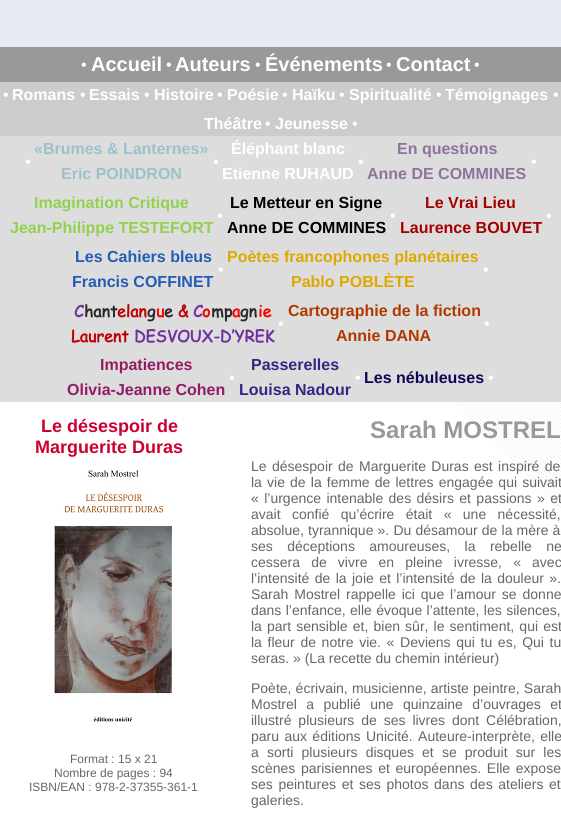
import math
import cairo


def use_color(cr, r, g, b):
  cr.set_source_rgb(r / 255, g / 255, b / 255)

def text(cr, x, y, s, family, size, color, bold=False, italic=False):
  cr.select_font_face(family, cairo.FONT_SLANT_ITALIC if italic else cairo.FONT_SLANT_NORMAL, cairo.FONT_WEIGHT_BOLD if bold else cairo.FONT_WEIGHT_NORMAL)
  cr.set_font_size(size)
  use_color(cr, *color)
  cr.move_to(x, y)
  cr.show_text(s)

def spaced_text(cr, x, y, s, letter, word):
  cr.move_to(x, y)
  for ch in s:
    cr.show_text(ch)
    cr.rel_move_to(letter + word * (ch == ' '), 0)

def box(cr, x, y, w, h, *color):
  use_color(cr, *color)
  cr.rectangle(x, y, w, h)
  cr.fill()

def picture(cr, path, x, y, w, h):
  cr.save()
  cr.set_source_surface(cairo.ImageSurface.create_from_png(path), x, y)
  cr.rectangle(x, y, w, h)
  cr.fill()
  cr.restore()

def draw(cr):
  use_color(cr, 255, 255, 255)
  cr.paint()
  picture(cr, "img_01.png", 455, 402, 106, 106)
  box(cr, 0, 0, 561, 47, 231, 234, 241)
  box(cr, 0, 47, 561, 35, 153, 153, 153)
  box(cr, 0, 82, 561, 54, 204, 204, 204)
  box(cr, 0, 136, 561, 266, 221, 221, 221)
  picture(cr, "img_02.png", 53, 470, 120, 252)
  text(cr, 81, 70, "•", "Liberation Sans", 16, (255, 255, 255))
  text(cr, 91, 71, "Accueil", "Liberation Sans", 20, (255, 255, 255), bold=True)
  text(cr, 166, 70, "•", "Liberation Sans", 16, (255, 255, 255))
  text(cr, 175, 71, "Auteurs", "Liberation Sans", 20, (255, 255, 255), bold=True)
  text(cr, 255, 70, "•", "Liberation Sans", 16, (255, 255, 255))
  text(cr, 265, 71, "Événements", "Liberation Sans", 20, (255, 255, 255), bold=True)
  text(cr, 386, 70, "•", "Liberation Sans", 16, (255, 255, 255))
  text(cr, 396, 71, "Contact", "Liberation Sans", 20, (255, 255, 255), bold=True)
  text(cr, 474, 70, "•", "Liberation Sans", 16, (255, 255, 255))
  text(cr, 3, 100, "•", "Liberation Sans", 16, (255, 255, 255))
  text(cr, 12, 100, "Romans", "Liberation Sans", 16, (255, 255, 255), bold=True)
  text(cr, 80, 100, "•", "Liberation Sans", 16, (255, 255, 255))
  text(cr, 89, 100, "Essais", "Liberation Sans", 16, (255, 255, 255), bold=True)
  text(cr, 144, 100, "•", "Liberation Sans", 16, (255, 255, 255))
  text(cr, 154, 100, "Histoire", "Liberation Sans", 16, (255, 255, 255), bold=True)
  text(cr, 217, 100, "•", "Liberation Sans", 16, (255, 255, 255))
  text(cr, 227, 100, "Poésie", "Liberation Sans", 16, (255, 255, 255), bold=True)
  text(cr, 282, 100, "•", "Liberation Sans", 16, (255, 255, 255))
  text(cr, 292, 100, "Haïku", "Liberation Sans", 16, (255, 255, 255), bold=True)
  text(cr, 339, 100, "•", "Liberation Sans", 16, (255, 255, 255))
  text(cr, 349, 100, "Spiritualité", "Liberation Sans", 16, (255, 255, 255), bold=True)
  text(cr, 436, 100, "•", "Liberation Sans", 16, (255, 255, 255))
  text(cr, 445, 100, "Témoignages", "Liberation Sans", 16, (255, 255, 255), bold=True)
  text(cr, 553, 100, "•", "Liberation Sans", 16, (255, 255, 255))
  text(cr, 204, 129, "Théâtre", "Liberation Sans", 16, (255, 255, 255), bold=True)
  text(cr, 265, 129, "•", "Liberation Sans", 16, (255, 255, 255))
  text(cr, 275, 129, "Jeunesse", "Liberation Sans", 16, (255, 255, 255), bold=True)
  text(cr, 352, 129, "•", "Liberation Sans", 16, (255, 255, 255))
  text(cr, 25, 167, "•", "Liberation Sans", 16, (255, 255, 255))
  text(cr, 34, 154, "«Brumes & Lanternes»", "Liberation Sans", 16, (157, 193, 204), bold=True)
  text(cr, 61, 179, "Eric POINDRON", "Liberation Sans", 16, (157, 193, 204), bold=True)
  text(cr, 213, 167, "•", "Liberation Sans", 16, (255, 255, 255))
  text(cr, 231, 154, "Éléphant blanc", "Liberation Sans", 16, (255, 255, 255), bold=True)
  text(cr, 222, 179, "Etienne RUHAUD", "Liberation Sans", 16, (255, 255, 255), bold=True)
  text(cr, 358, 167, "•", "Liberation Sans", 16, (255, 255, 255))
  text(cr, 397, 154, "En questions", "Liberation Sans", 16, (144, 114, 156), bold=True)
  text(cr, 367, 179, "Anne DE COMMINES", "Liberation Sans", 16, (144, 114, 156), bold=True)
  text(cr, 531, 167, "•", "Liberation Sans", 16, (255, 255, 255))
  text(cr, 34, 208, "Imagination Critique", "Liberation Sans", 16, (146, 209, 79), bold=True)
  text(cr, 10, 233, "Jean-Philippe TESTEFORT", "Liberation Sans", 16, (146, 209, 79), bold=True)
  text(cr, 217, 221, "•", "Liberation Sans", 16, (255, 255, 255))
  text(cr, 230, 208, "Le Metteur en Signe", "Liberation Sans", 16, (0, 0, 0), bold=True)
  text(cr, 227, 233, "Anne DE COMMINES", "Liberation Sans", 16, (0, 0, 0), bold=True)
  text(cr, 390, 221, "•", "Liberation Sans", 16, (255, 255, 255))
  text(cr, 425, 208, "Le Vrai Lieu", "Liberation Sans", 16, (165, 0, 0), bold=True)
  text(cr, 400, 233, "Laurence BOUVET", "Liberation Sans", 16, (165, 0, 0), bold=True)
  text(cr, 546, 221, "•", "Liberation Sans", 16, (255, 255, 255))
  text(cr, 75, 262, "Les Cahiers bleus", "Liberation Sans", 16, (34, 92, 181), bold=True)
  text(cr, 72, 287, "Francis COFFINET", "Liberation Sans", 16, (34, 92, 181), bold=True)
  text(cr, 218, 275, "•", "Liberation Sans", 16, (255, 255, 255))
  text(cr, 227, 262, "Poètes francophones planétaires", "Liberation Sans", 16, (222, 168, 0), bold=True)
  text(cr, 291, 287, "Pablo POBLÈTE", "Liberation Sans", 16, (222, 168, 0), bold=True)
  text(cr, 483, 275, "•", "Liberation Sans", 16, (255, 255, 255))
  text(cr, 74, 317, "C", "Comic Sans", 16, (112, 48, 160), bold=True)
  text(cr, 84, 317, "hant", "Comic Sans", 16, (38, 40, 42), bold=True)
  text(cr, 117, 317, "elan", "Comic Sans", 16, (192, 0, 0), bold=True)
  text(cr, 147, 317, "g", "Comic Sans", 16, (38, 40, 42), bold=True)
  text(cr, 156, 317, "u", "Comic Sans", 16, (255, 0, 0), bold=True)
  text(cr, 164, 317, "e", "Comic Sans", 16, (38, 40, 42), bold=True)
  text(cr, 178, 317, "&", "Comic Sans", 16, (192, 0, 0), bold=True)
  text(cr, 193, 317, "C", "Comic Sans", 16, (112, 48, 160), bold=True)
  text(cr, 202, 317, "o", "Comic Sans", 16, (255, 0, 0), bold=True)
  text(cr, 211, 317, "mp", "Comic Sans", 16, (38, 40, 42), bold=True)
  text(cr, 232, 317, "a", "Comic Sans", 16, (255, 0, 0), bold=True)
  text(cr, 240, 317, "gn", "Comic Sans", 16, (38, 40, 42), bold=True)
  text(cr, 258, 317, "ie", "Comic Sans", 16, (255, 0, 0), bold=True)
  text(cr, 71, 342, "Laurent", "Comic Sans", 16, (192, 0, 0), bold=True)
  text(cr, 134, 342, "DESVOUX-D’YREK", "Comic Sans", 16, (112, 48, 160), bold=True)
  text(cr, 278, 329, "•", "Liberation Sans", 16, (255, 255, 255))
  text(cr, 288, 316, "Cartographie de la fiction", "Liberation Sans", 16, (176, 57, 0), bold=True)
  text(cr, 336, 341, "Annie DANA", "Liberation Sans", 16, (176, 57, 0), bold=True)
  text(cr, 484, 329, "•", "Liberation Sans", 16, (255, 255, 255))
  text(cr, 100, 370, "Impatiences", "Liberation Sans", 16, (147, 28, 100), bold=True)
  text(cr, 67, 395, "Olivia-Jeanne Cohen", "Liberation Sans", 16, (147, 28, 100), bold=True)
  text(cr, 229, 383, "•", "Liberation Sans", 16, (255, 255, 255))
  text(cr, 251, 370, "Passerelles", "Liberation Sans", 16, (49, 39, 131), bold=True)
  text(cr, 239, 395, "Louisa Nadour", "Liberation Sans", 16, (49, 39, 131), bold=True)
  text(cr, 355, 383, "•", "Liberation Sans", 16, (255, 255, 255))
  text(cr, 364, 383, "Les nébuleuses", "Liberation Sans", 16, (12, 6, 87), bold=True)
  text(cr, 488, 383, "•", "Liberation Sans", 16, (255, 255, 255))
  text(cr, 41, 432, "Le désespoir de", "Liberation Sans", 18, (204, 0, 51), bold=True)
  text(cr, 35, 453, "Marguerite Duras", "Liberation Sans", 18, (204, 0, 51), bold=True)
  text(cr, 70, 763, "Format : 15 x 21", "Liberation Sans", 12, (102, 102, 102))
  text(cr, 54, 777, "Nombre de pages : 94", "Liberation Sans", 12, (102, 102, 102))
  text(cr, 29, 791, "ISBN/EAN : 978-2-37355-361-1", "Liberation Sans", 12, (102, 102, 102))
  text(cr, 370, 438, "Sarah MOSTREL", "Liberation Sans", 24, (153, 153, 153), bold=True)
  cr.select_font_face("Liberation Sans")
  cr.set_font_size(14)
  use_color(cr, 102, 102, 102)
  spaced_text(cr, 251, 471, "Le désespoir de Marguerite Duras est inspiré de", 0, 1.5)
  spaced_text(cr, 251, 487, "la vie de la femme de lettres engagée qui suivait", 0, 1.25)
  spaced_text(cr, 251, 503, "« l’urgence intenable des désirs et passions » et", 0, 1.5)
  spaced_text(cr, 251, 519, "avait confié qu’écrire était « une nécessité,", 0, 7.5)
  spaced_text(cr, 251, 535, "absolue, tyrannique ». Du désamour de la mère à", 0, 0.25)
  spaced_text(cr, 251, 551, "ses déceptions amoureuses, la rebelle ne", 0, 10.5)
  spaced_text(cr, 251, 567, "cessera de vivre en pleine ivresse, « avec", 0, 7.25)
  spaced_text(cr, 251, 583, "l’intensité de la joie et l’intensité de la douleur ».", 0, 1.5)
  spaced_text(cr, 251, 599, "Sarah Mostrel rappelle ici que l’amour se donne", 0, 2)
  spaced_text(cr, 251, 615, "dans l’enfance, elle évoque l’attente, les silences,", 0, 0.5)
  spaced_text(cr, 251, 631, "la part sensible et, bien sûr, le sentiment, qui est", 0, 1.25)
  spaced_text(cr, 251, 647, "la fleur de notre vie. « Deviens qui tu es, Qui tu", 0, 1.75)
  text(cr, 251, 663, "seras. » (La recette du chemin intérieur)", "Liberation Sans", 14, (102, 102, 102))
  spaced_text(cr, 251, 693, "Poète, écrivain, musicienne, artiste peintre, Sarah", 0, 0.25)
  spaced_text(cr, 251, 709, "Mostrel a publié une quinzaine d’ouvrages et", 0, 5.5)
  spaced_text(cr, 251, 725, "illustré plusieurs de ses livres dont Célébration,", 0, 3)
  spaced_text(cr, 251, 741, "paru aux éditions Unicité. Auteure-interprète, elle", 0, 1.5)
  spaced_text(cr, 251, 757, "a sorti plusieurs disques et se produit sur les", 0, 4.25)
  spaced_text(cr, 251, 773, "scènes parisiennes et européennes. Elle expose", 0, 1.75)
  spaced_text(cr, 251, 789, "ses peintures et ses photos dans des ateliers et", 0, 1.75)
  text(cr, 251, 805, "galeries.", "Liberation Sans", 14, (102, 102, 102))


surface = cairo.ImageSurface(cairo.FORMAT_RGB24, 561, 815)
cr = cairo.Context(surface)
options = cairo.FontOptions()
options.set_hint_metrics(cairo.HINT_METRICS_OFF)
options.set_hint_style(cairo.HINT_STYLE_NONE)
cr.set_font_options(options)
cr.set_miter_limit(4)
draw(cr)
surface.write_to_png("out.png")
